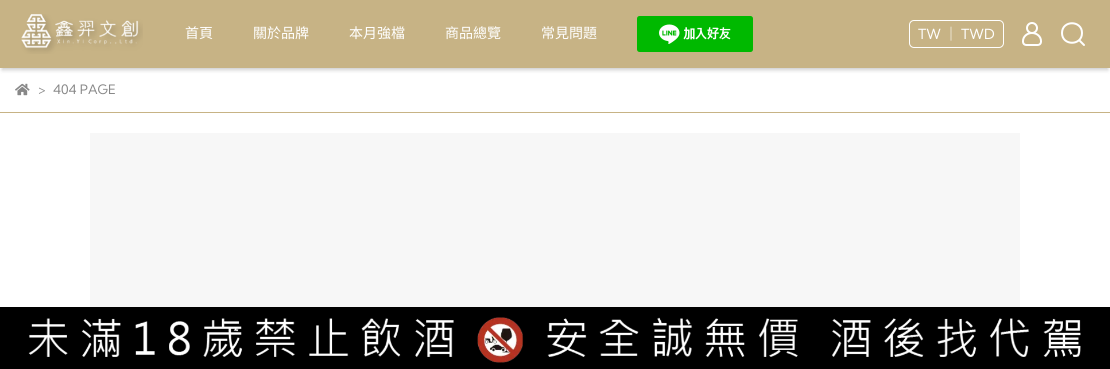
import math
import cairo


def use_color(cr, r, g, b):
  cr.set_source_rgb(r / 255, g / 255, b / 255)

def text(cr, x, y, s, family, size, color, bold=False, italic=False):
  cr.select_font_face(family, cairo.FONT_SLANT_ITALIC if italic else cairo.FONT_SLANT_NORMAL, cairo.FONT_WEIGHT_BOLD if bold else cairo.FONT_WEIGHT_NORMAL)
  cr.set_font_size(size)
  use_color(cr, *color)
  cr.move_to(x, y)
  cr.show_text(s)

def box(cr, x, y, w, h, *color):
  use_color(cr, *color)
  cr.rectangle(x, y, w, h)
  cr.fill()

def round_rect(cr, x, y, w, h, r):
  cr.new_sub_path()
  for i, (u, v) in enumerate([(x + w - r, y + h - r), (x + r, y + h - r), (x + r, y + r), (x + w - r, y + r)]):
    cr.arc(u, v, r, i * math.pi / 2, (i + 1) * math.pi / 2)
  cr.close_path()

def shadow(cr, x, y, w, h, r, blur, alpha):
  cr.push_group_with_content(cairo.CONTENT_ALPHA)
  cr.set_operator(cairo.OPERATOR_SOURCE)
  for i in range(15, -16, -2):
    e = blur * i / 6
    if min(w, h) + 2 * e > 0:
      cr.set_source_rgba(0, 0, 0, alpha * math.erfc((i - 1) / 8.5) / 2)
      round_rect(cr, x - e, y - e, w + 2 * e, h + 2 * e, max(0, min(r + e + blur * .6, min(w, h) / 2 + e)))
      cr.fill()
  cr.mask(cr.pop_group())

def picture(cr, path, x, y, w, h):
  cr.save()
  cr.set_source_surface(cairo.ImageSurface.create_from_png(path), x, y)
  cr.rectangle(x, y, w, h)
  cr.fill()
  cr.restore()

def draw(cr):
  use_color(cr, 255, 255, 255)
  cr.paint()
  use_color(cr, 0, 0, 0)
  shadow(cr, 2, 6, 1106, 64, 0, 2, 0.2)
  box(cr, 0, 0, 1110, 68, 199, 179, 133)
  picture(cr, "img_01.png", 21, 14, 122, 40)
  picture(cr, "img_02.png", 637, 16, 116, 36)
  round_rect(cr, 909.5, 20.5, 94, 27, 4.5)
  use_color(cr, 255, 255, 255)
  cr.set_line_width(1)
  cr.stroke()
  picture(cr, "img_03.png", 1022, 22, 20, 24)
  cr.new_path()
  cr.move_to(1082, 33)
  cr.curve_to(1082, 46, 1062, 46, 1062, 33)
  cr.curve_to(1062, 20, 1082, 20, 1082, 33)
  cr.close_path()
  cr.move_to(1080, 41)
  cr.line_to(1084, 45)
  cr.set_line_width(2)
  cr.set_line_cap(cairo.LINE_CAP_ROUND)
  cr.set_line_join(cairo.LINE_JOIN_ROUND)
  cr.stroke()
  box(cr, 0, 112, 1110, 1, 199, 179, 133)
  picture(cr, "img_04.png", 15, 83, 15, 13)
  picture(cr, "img_05.png", 90, 133, 930, 174)
  box(cr, 0, 307, 1110, 62, 0, 0, 0)
  picture(cr, "img_06.png", 28, 317, 1053, 46)
  text(cr, 185, 38, "首頁", "Noto Sans CJK TC", 14, (255, 255, 255))
  text(cr, 253, 38, "關於品牌", "Noto Sans CJK TC", 14, (255, 255, 255))
  text(cr, 349, 38, "本月強檔", "Noto Sans CJK TC", 14, (255, 255, 255))
  text(cr, 445, 38, "商品總覽", "Noto Sans CJK TC", 14, (255, 255, 255))
  text(cr, 541, 38, "常見問題", "Noto Sans CJK TC", 14, (255, 255, 255))
  text(cr, 918, 39, "TW", "Kumbh Sans", 14, (255, 255, 255))
  text(cr, 944, 39, "｜", "Noto Sans CJK TC", 14, (255, 255, 255))
  text(cr, 961, 39, "TWD", "Kumbh Sans", 14, (255, 255, 255))
  text(cr, 38, 94, ">", "Kumbh Sans", 13, (136, 136, 136))
  text(cr, 53, 94, "404 PAGE", "Kumbh Sans", 13, (136, 136, 136))


surface = cairo.ImageSurface(cairo.FORMAT_RGB24, 1110, 369)
cr = cairo.Context(surface)
options = cairo.FontOptions()
options.set_hint_metrics(cairo.HINT_METRICS_OFF)
options.set_hint_style(cairo.HINT_STYLE_NONE)
cr.set_font_options(options)
cr.set_miter_limit(4)
draw(cr)
surface.write_to_png("out.png")
